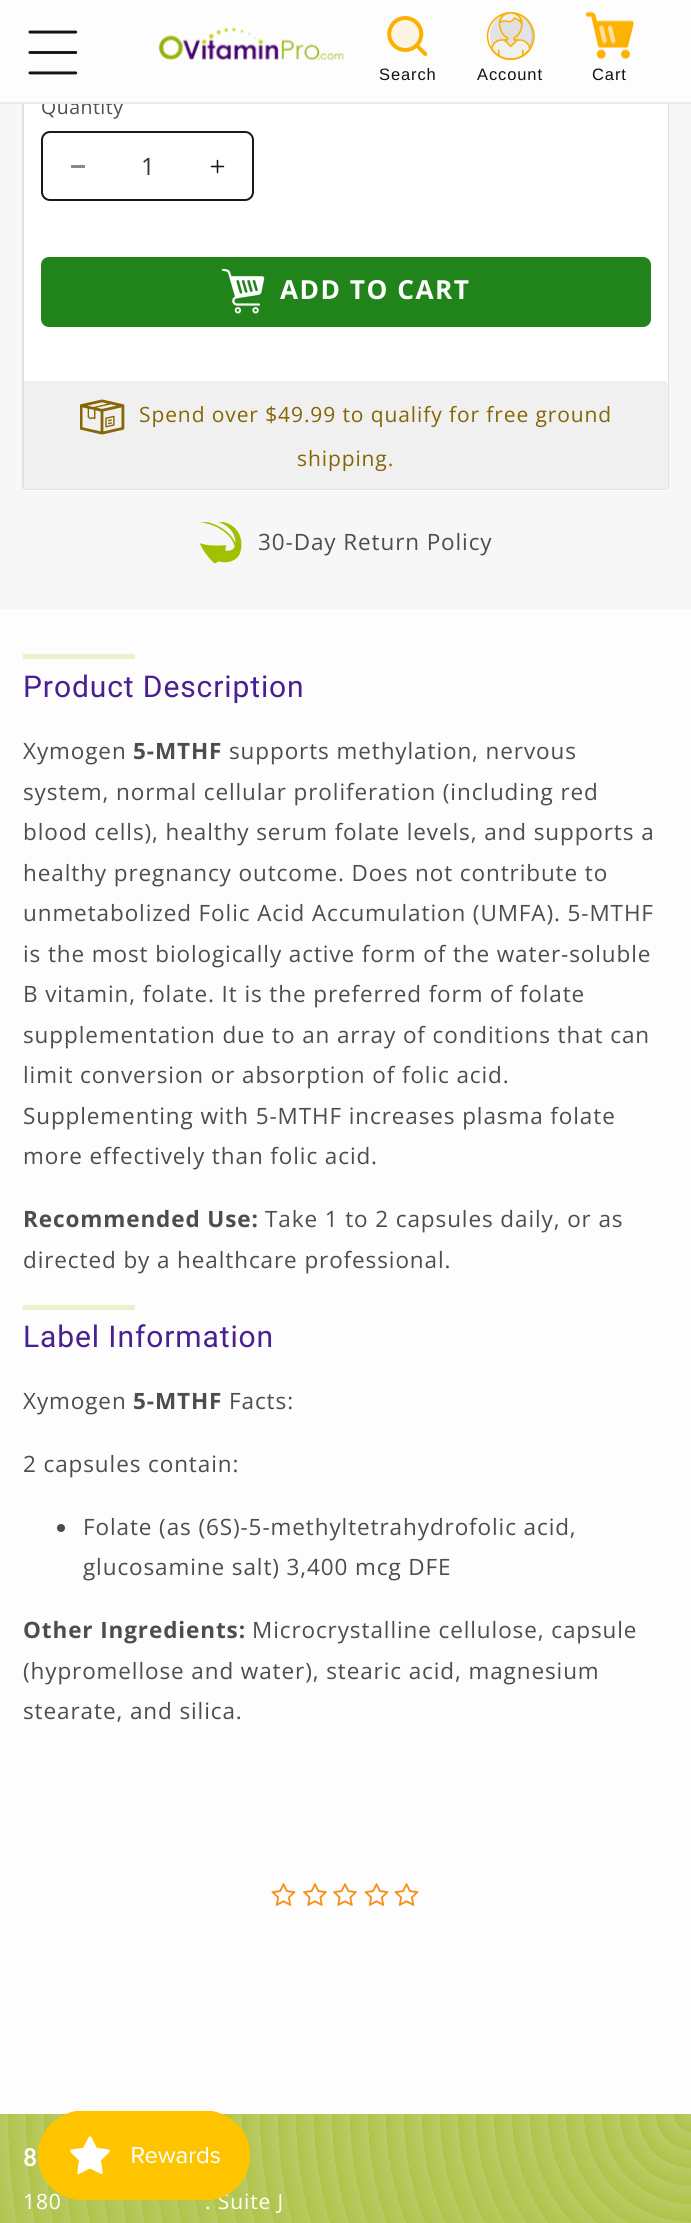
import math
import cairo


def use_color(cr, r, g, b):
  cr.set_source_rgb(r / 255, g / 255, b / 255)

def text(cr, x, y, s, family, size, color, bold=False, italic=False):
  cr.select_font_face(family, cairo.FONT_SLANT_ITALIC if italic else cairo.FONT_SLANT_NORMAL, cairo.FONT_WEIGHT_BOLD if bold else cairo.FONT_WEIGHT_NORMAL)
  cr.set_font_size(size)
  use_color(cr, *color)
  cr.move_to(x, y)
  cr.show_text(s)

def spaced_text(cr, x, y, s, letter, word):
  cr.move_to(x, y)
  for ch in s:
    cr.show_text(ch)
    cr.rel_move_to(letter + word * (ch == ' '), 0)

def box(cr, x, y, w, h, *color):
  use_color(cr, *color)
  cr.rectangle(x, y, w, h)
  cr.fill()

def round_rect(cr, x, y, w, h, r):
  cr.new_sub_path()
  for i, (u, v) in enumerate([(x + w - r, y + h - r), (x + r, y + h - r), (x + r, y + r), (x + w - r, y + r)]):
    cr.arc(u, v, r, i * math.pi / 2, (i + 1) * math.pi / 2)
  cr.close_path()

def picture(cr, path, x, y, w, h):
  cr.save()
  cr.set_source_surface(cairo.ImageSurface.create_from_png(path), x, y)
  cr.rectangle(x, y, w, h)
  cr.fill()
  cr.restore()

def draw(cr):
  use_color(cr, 253, 253, 253)
  cr.paint()
  picture(cr, "img_01.png", 28, 30, 50, 45)
  picture(cr, "img_02.png", 159, 27, 185, 33)
  picture(cr, "img_03.png", 387, 16, 41, 40)
  picture(cr, "img_04.png", 486, 12, 49, 48)
  picture(cr, "img_05.png", 585, 11, 49, 49)
  box(cr, 0, 104, 691, 505, 247, 247, 247)
  box(cr, 24, 104, 644, 277, 255, 255, 255)
  use_color(cr, 222, 226, 230)
  cr.set_fill_rule(cairo.FILL_RULE_EVEN_ODD)
  cr.new_path()
  cr.move_to(27, 75)
  cr.line_to(665, 75)
  cr.curve_to(667, 75, 669, 77, 669, 79)
  cr.line_to(669, 381)
  cr.line_to(22, 381)
  cr.line_to(22, 79)
  cr.curve_to(22, 77, 24, 75, 27, 75)
  cr.close_path()
  cr.move_to(27, 76)
  cr.line_to(665, 76)
  cr.curve_to(666, 76, 668, 78, 668, 79)
  cr.line_to(668, 381)
  cr.line_to(24, 381)
  cr.line_to(24, 79)
  cr.curve_to(24, 78, 25, 76, 27, 76)
  cr.close_path()
  cr.fill()
  round_rect(cr, 42, 132, 211, 68, 8)
  use_color(cr, 24, 24, 24)
  cr.stroke()
  box(cr, 71, 165, 14, 3, 137, 137, 137)
  picture(cr, "img_06.png", 210, 159, 15, 15)
  use_color(cr, 32, 132, 26)
  round_rect(cr, 41, 257, 610, 70, 8)
  cr.fill()
  picture(cr, "img_07.png", 221, 269, 44, 45)
  use_color(cr, 255, 255, 255)
  cr.new_path()
  cr.move_to(23, 381)
  cr.line_to(669, 381)
  cr.line_to(669, 486)
  cr.curve_to(669, 489, 667, 491, 664, 491)
  cr.line_to(28, 491)
  cr.curve_to(25, 491, 23, 489, 23, 486)
  cr.close_path()
  cr.fill()
  use_color(cr, 222, 226, 230)
  cr.new_path()
  cr.move_to(22, 381)
  cr.line_to(669, 381)
  cr.line_to(669, 486)
  cr.curve_to(669, 489, 667, 490, 665, 490)
  cr.line_to(27, 490)
  cr.curve_to(24, 490, 22, 489, 22, 486)
  cr.close_path()
  cr.move_to(24, 381)
  cr.line_to(668, 381)
  cr.line_to(668, 486)
  cr.curve_to(668, 488, 666, 489, 665, 489)
  cr.line_to(27, 489)
  cr.curve_to(25, 489, 24, 488, 24, 486)
  cr.close_path()
  cr.fill()
  use_color(cr, 241, 240, 240)
  cr.new_path()
  cr.move_to(24, 381)
  cr.line_to(663, 381)
  cr.curve_to(666, 381, 668, 383, 668, 386)
  cr.line_to(668, 484)
  cr.curve_to(668, 487, 666, 489, 663, 489)
  cr.line_to(24, 489)
  cr.close_path()
  cr.fill()
  picture(cr, "img_08.png", 80, 399, 45, 36)
  picture(cr, "img_09.png", 199, 522, 43, 42)
  box(cr, 23, 654, 112, 5, 235, 241, 202)
  box(cr, 23, 1305, 112, 5, 235, 241, 202)
  use_color(cr, 77, 77, 77)
  cr.arc(61, 1528, 4, 0, 2 * math.pi)
  cr.fill()
  picture(cr, "img_10.png", 271, 1883, 25, 23)
  picture(cr, "img_11.png", 303, 1883, 24, 23)
  picture(cr, "img_11.png", 333, 1883, 24, 23)
  picture(cr, "img_10.png", 364, 1883, 25, 23)
  picture(cr, "img_10.png", 394, 1883, 25, 23)
  gradient = cairo.LinearGradient(346, 2114, 346, 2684)
  gradient.add_color_stop_rgba(0, 0.733, 0.8, 0.4, 1)
  gradient.add_color_stop_rgba(1, 0.686, 0.765, 0.294, 1)
  cr.set_source(gradient)
  cr.rectangle(0, 2114, 691, 109)
  cr.fill()
  gradient = cairo.RadialGradient(692, 2114, 0, 692, 2114, 900)
  gradient.add_color_stop_rgba(0, 0.686, 0.765, 0.294, 0)
  gradient.add_color_stop_rgba(0.02, 0.686, 0.765, 0.294, 1)
  gradient.add_color_stop_rgba(0.02, 0.686, 0.765, 0.294, 0)
  gradient.add_color_stop_rgba(0.04, 0.686, 0.765, 0.294, 1)
  gradient.add_color_stop_rgba(0.04, 0.686, 0.765, 0.294, 0)
  gradient.add_color_stop_rgba(0.06, 0.686, 0.765, 0.294, 1)
  gradient.add_color_stop_rgba(0.06, 0.686, 0.765, 0.294, 0)
  gradient.add_color_stop_rgba(0.08, 0.686, 0.765, 0.294, 1)
  gradient.add_color_stop_rgba(0.08, 0.686, 0.765, 0.294, 0)
  gradient.add_color_stop_rgba(0.1, 0.686, 0.765, 0.294, 1)
  gradient.add_color_stop_rgba(0.1, 0.686, 0.765, 0.294, 0)
  gradient.add_color_stop_rgba(0.12, 0.686, 0.765, 0.294, 1)
  gradient.add_color_stop_rgba(0.12, 0.686, 0.765, 0.294, 0)
  gradient.add_color_stop_rgba(0.14, 0.686, 0.765, 0.294, 1)
  gradient.add_color_stop_rgba(0.14, 0.686, 0.765, 0.294, 0)
  gradient.add_color_stop_rgba(0.16, 0.686, 0.765, 0.294, 1)
  gradient.add_color_stop_rgba(0.16, 0.686, 0.765, 0.294, 0)
  gradient.add_color_stop_rgba(0.18, 0.686, 0.765, 0.294, 1)
  gradient.add_color_stop_rgba(0.18, 0.686, 0.765, 0.294, 0)
  gradient.add_color_stop_rgba(0.2, 0.686, 0.765, 0.294, 1)
  gradient.add_color_stop_rgba(0.2, 0.686, 0.765, 0.294, 0)
  gradient.add_color_stop_rgba(0.22, 0.686, 0.765, 0.294, 1)
  gradient.add_color_stop_rgba(0.22, 0.686, 0.765, 0.294, 0)
  gradient.add_color_stop_rgba(0.24, 0.686, 0.765, 0.294, 1)
  gradient.add_color_stop_rgba(0.24, 0.686, 0.765, 0.294, 0)
  gradient.add_color_stop_rgba(0.26, 0.686, 0.765, 0.294, 1)
  gradient.add_color_stop_rgba(0.26, 0.686, 0.765, 0.294, 0)
  gradient.add_color_stop_rgba(0.28, 0.686, 0.765, 0.294, 1)
  gradient.add_color_stop_rgba(0.28, 0.686, 0.765, 0.294, 0)
  gradient.add_color_stop_rgba(0.3, 0.686, 0.765, 0.294, 1)
  gradient.add_color_stop_rgba(0.3, 0.686, 0.765, 0.294, 0)
  gradient.add_color_stop_rgba(0.32, 0.686, 0.765, 0.294, 1)
  gradient.add_color_stop_rgba(0.32, 0.686, 0.765, 0.294, 0)
  gradient.add_color_stop_rgba(0.34, 0.686, 0.765, 0.294, 1)
  gradient.add_color_stop_rgba(0.34, 0.686, 0.765, 0.294, 0)
  gradient.add_color_stop_rgba(0.36, 0.686, 0.765, 0.294, 1)
  gradient.add_color_stop_rgba(0.36, 0.686, 0.765, 0.294, 0)
  gradient.add_color_stop_rgba(0.38, 0.686, 0.765, 0.294, 1)
  gradient.add_color_stop_rgba(0.38, 0.686, 0.765, 0.294, 0)
  gradient.add_color_stop_rgba(0.4, 0.686, 0.765, 0.294, 1)
  gradient.add_color_stop_rgba(0.4, 0.686, 0.765, 0.294, 0)
  gradient.add_color_stop_rgba(0.42, 0.686, 0.765, 0.294, 1)
  gradient.add_color_stop_rgba(0.42, 0.686, 0.765, 0.294, 0)
  gradient.add_color_stop_rgba(0.44, 0.686, 0.765, 0.294, 1)
  gradient.add_color_stop_rgba(0.44, 0.686, 0.765, 0.294, 0)
  gradient.add_color_stop_rgba(0.46, 0.686, 0.765, 0.294, 1)
  gradient.add_color_stop_rgba(0.46, 0.686, 0.765, 0.294, 0)
  gradient.add_color_stop_rgba(0.48, 0.686, 0.765, 0.294, 1)
  gradient.add_color_stop_rgba(0.48, 0.686, 0.765, 0.294, 0)
  gradient.add_color_stop_rgba(0.5, 0.686, 0.765, 0.294, 1)
  gradient.add_color_stop_rgba(0.5, 0.686, 0.765, 0.294, 0)
  gradient.add_color_stop_rgba(0.52, 0.686, 0.765, 0.294, 1)
  gradient.add_color_stop_rgba(0.52, 0.686, 0.765, 0.294, 0)
  gradient.add_color_stop_rgba(0.54, 0.686, 0.765, 0.294, 1)
  gradient.add_color_stop_rgba(0.54, 0.686, 0.765, 0.294, 0)
  gradient.add_color_stop_rgba(0.56, 0.686, 0.765, 0.294, 1)
  gradient.add_color_stop_rgba(0.56, 0.686, 0.765, 0.294, 0)
  gradient.add_color_stop_rgba(0.58, 0.686, 0.765, 0.294, 1)
  gradient.add_color_stop_rgba(0.58, 0.686, 0.765, 0.294, 0)
  gradient.add_color_stop_rgba(0.6, 0.686, 0.765, 0.294, 1)
  gradient.add_color_stop_rgba(0.6, 0.686, 0.765, 0.294, 0)
  gradient.add_color_stop_rgba(0.62, 0.686, 0.765, 0.294, 1)
  gradient.add_color_stop_rgba(0.62, 0.686, 0.765, 0.294, 0)
  gradient.add_color_stop_rgba(0.64, 0.686, 0.765, 0.294, 1)
  gradient.add_color_stop_rgba(0.64, 0.686, 0.765, 0.294, 0)
  gradient.add_color_stop_rgba(0.66, 0.686, 0.765, 0.294, 1)
  gradient.add_color_stop_rgba(0.66, 0.686, 0.765, 0.294, 0)
  gradient.add_color_stop_rgba(0.68, 0.686, 0.765, 0.294, 1)
  gradient.add_color_stop_rgba(0.68, 0.686, 0.765, 0.294, 0)
  gradient.add_color_stop_rgba(0.7, 0.686, 0.765, 0.294, 1)
  gradient.add_color_stop_rgba(0.7, 0.686, 0.765, 0.294, 0)
  gradient.add_color_stop_rgba(0.72, 0.686, 0.765, 0.294, 1)
  gradient.add_color_stop_rgba(0.72, 0.686, 0.765, 0.294, 0)
  gradient.add_color_stop_rgba(0.74, 0.686, 0.765, 0.294, 1)
  gradient.add_color_stop_rgba(0.74, 0.686, 0.765, 0.294, 0)
  gradient.add_color_stop_rgba(0.76, 0.686, 0.765, 0.294, 1)
  gradient.add_color_stop_rgba(0.76, 0.686, 0.765, 0.294, 0)
  gradient.add_color_stop_rgba(0.78, 0.686, 0.765, 0.294, 1)
  gradient.add_color_stop_rgba(0.78, 0.686, 0.765, 0.294, 0)
  gradient.add_color_stop_rgba(0.8, 0.686, 0.765, 0.294, 1)
  gradient.add_color_stop_rgba(0.8, 0.686, 0.765, 0.294, 0)
  gradient.add_color_stop_rgba(0.82, 0.686, 0.765, 0.294, 1)
  gradient.add_color_stop_rgba(0.82, 0.686, 0.765, 0.294, 0)
  gradient.add_color_stop_rgba(0.84, 0.686, 0.765, 0.294, 1)
  gradient.add_color_stop_rgba(0.84, 0.686, 0.765, 0.294, 0)
  gradient.add_color_stop_rgba(0.86, 0.686, 0.765, 0.294, 1)
  gradient.add_color_stop_rgba(0.86, 0.686, 0.765, 0.294, 0)
  gradient.add_color_stop_rgba(0.88, 0.686, 0.765, 0.294, 1)
  gradient.add_color_stop_rgba(0.88, 0.686, 0.765, 0.294, 0)
  gradient.add_color_stop_rgba(0.9, 0.686, 0.765, 0.294, 1)
  gradient.add_color_stop_rgba(0.9, 0.686, 0.765, 0.294, 0)
  gradient.add_color_stop_rgba(0.92, 0.686, 0.765, 0.294, 1)
  gradient.add_color_stop_rgba(0.92, 0.686, 0.765, 0.294, 0)
  gradient.add_color_stop_rgba(0.94, 0.686, 0.765, 0.294, 1)
  gradient.add_color_stop_rgba(0.94, 0.686, 0.765, 0.294, 0)
  gradient.add_color_stop_rgba(0.96, 0.686, 0.765, 0.294, 1)
  gradient.add_color_stop_rgba(0.96, 0.686, 0.765, 0.294, 0)
  gradient.add_color_stop_rgba(0.98, 0.686, 0.765, 0.294, 1)
  gradient.add_color_stop_rgba(0.98, 0.686, 0.765, 0.294, 0)
  gradient.add_color_stop_rgba(1, 0.686, 0.765, 0.294, 1)
  cr.set_source(gradient)
  cr.rectangle(0, 2114, 691, 109)
  cr.fill()
  cr.select_font_face("Open Sans")
  cr.set_font_size(19.5)
  use_color(cr, 77, 77, 77)
  spaced_text(cr, 41, 114, "Quantity", 0.5, 0)
  box(cr, 22, 75, 647, 27, 253, 253, 253)
  cr.select_font_face("Liberation Sans")
  cr.set_font_size(16.5)
  use_color(cr, 18, 18, 18)
  spaced_text(cr, 477, 80, "Account", 0.9, 0)
  spaced_text(cr, 592, 80, "Cart", 0.9, 0)
  spaced_text(cr, 379, 80, "Search", 0.9, 0)
  box(cr, 0, 102, 691, 2, 234, 234, 234)
  text(cr, 141, 175, "1", "Open Sans", 24, (54, 54, 54))
  cr.select_font_face("Open Sans", cairo.FONT_SLANT_NORMAL, cairo.FONT_WEIGHT_BOLD)
  cr.set_font_size(26.25)
  use_color(cr, 255, 255, 255)
  spaced_text(cr, 280, 299, "ADD TO CART", 1.5, 0)
  cr.select_font_face("Open Sans")
  cr.set_font_size(21)
  use_color(cr, 133, 100, 4)
  spaced_text(cr, 139, 422, "Spend over $49.99 to qualify for free ground", 0.9, 0)
  spaced_text(cr, 297, 466, "shipping.", 0.9, 0)
  cr.set_font_size(22.5)
  use_color(cr, 77, 77, 77)
  spaced_text(cr, 258, 550, "30-Day Return Policy", 0.9, 0)
  cr.select_font_face("Roboto")
  cr.set_font_size(30)
  use_color(cr, 74, 32, 144)
  spaced_text(cr, 23, 697, "Product Description", 0.9, 0)
  cr.select_font_face("Open Sans")
  cr.set_font_size(22.5)
  use_color(cr, 77, 77, 77)
  spaced_text(cr, 23, 759, "Xymogen", 0.9, 0)
  cr.select_font_face("Open Sans", cairo.FONT_SLANT_NORMAL, cairo.FONT_WEIGHT_BOLD)
  spaced_text(cr, 133, 759, "5-MTHF", 0.9, 0)
  cr.select_font_face("Open Sans")
  spaced_text(cr, 229, 759, "supports methylation, nervous", 0.9, 0)
  spaced_text(cr, 23, 800, "system, normal cellular proliferation (including red", 0.9, 0)
  spaced_text(cr, 23, 840, "blood cells), healthy serum folate levels, and supports a", 0.9, 0)
  spaced_text(cr, 23, 881, "healthy pregnancy outcome. Does not contribute to", 0.9, 0)
  spaced_text(cr, 23, 921, "unmetabolized Folic Acid Accumulation (UMFA). 5-MTHF", 0.9, 0)
  spaced_text(cr, 23, 962, "is the most biologically active form of the water-soluble", 0.9, 0)
  spaced_text(cr, 23, 1002, "B vitamin, folate. It is the preferred form of folate", 0.9, 0)
  spaced_text(cr, 23, 1043, "supplementation due to an array of conditions that can", 0.9, 0)
  spaced_text(cr, 23, 1083, "limit conversion or absorption of folic acid.", 0.9, 0)
  spaced_text(cr, 23, 1124, "Supplementing with 5-MTHF increases plasma folate", 0.9, 0)
  spaced_text(cr, 23, 1164, "more effectively than folic acid.", 0.9, 0)
  cr.select_font_face("Open Sans", cairo.FONT_SLANT_NORMAL, cairo.FONT_WEIGHT_BOLD)
  spaced_text(cr, 23, 1227, "Recommended Use:", 0.9, 0)
  cr.select_font_face("Open Sans")
  spaced_text(cr, 265, 1227, "Take 1 to 2 capsules daily, or as", 0.9, 0)
  spaced_text(cr, 23, 1268, "directed by a healthcare professional.", 0.9, 0)
  cr.select_font_face("Roboto")
  cr.set_font_size(30)
  use_color(cr, 74, 32, 144)
  spaced_text(cr, 23, 1347, "Label Information", 0.9, 0)
  cr.select_font_face("Open Sans")
  cr.set_font_size(22.5)
  use_color(cr, 77, 77, 77)
  spaced_text(cr, 23, 1409, "Xymogen", 0.9, 0)
  cr.select_font_face("Open Sans", cairo.FONT_SLANT_NORMAL, cairo.FONT_WEIGHT_BOLD)
  spaced_text(cr, 133, 1409, "5-MTHF", 0.9, 0)
  cr.select_font_face("Open Sans")
  spaced_text(cr, 229, 1409, "Facts:", 0.9, 0)
  spaced_text(cr, 23, 1472, "2 capsules contain:", 0.9, 0)
  spaced_text(cr, 83, 1535, "Folate (as (6S)-5-methyltetrahydrofolic acid,", 0.9, 0)
  spaced_text(cr, 83, 1575, "glucosamine salt) 3,400 mcg DFE", 0.9, 0)
  cr.select_font_face("Open Sans", cairo.FONT_SLANT_NORMAL, cairo.FONT_WEIGHT_BOLD)
  spaced_text(cr, 23, 1638, "Other Ingredients:", 0.9, 0)
  cr.select_font_face("Open Sans")
  spaced_text(cr, 252, 1638, "Microcrystalline cellulose, capsule", 0.9, 0)
  spaced_text(cr, 23, 1679, "(hypromellose and water), stearic acid, magnesium", 0.9, 0)
  spaced_text(cr, 23, 1719, "stearate, and silica.", 0.9, 0)
  cr.select_font_face("Roboto", cairo.FONT_SLANT_NORMAL, cairo.FONT_WEIGHT_BOLD)
  cr.set_font_size(24)
  use_color(cr, 255, 255, 255)
  spaced_text(cr, 23, 2166, "8", 0.9, 0)
  cr.select_font_face("Open Sans")
  cr.set_font_size(21)
  spaced_text(cr, 23, 2209, "180", 0.9, 0)
  spaced_text(cr, 205, 2209, ". Suite J", 0.9, 0)
  picture(cr, "img_12.png", 37, 2110, 214, 91)


surface = cairo.ImageSurface(cairo.FORMAT_RGB24, 691, 2223)
cr = cairo.Context(surface)
options = cairo.FontOptions()
options.set_hint_metrics(cairo.HINT_METRICS_OFF)
options.set_hint_style(cairo.HINT_STYLE_NONE)
cr.set_font_options(options)
cr.set_miter_limit(4)
draw(cr)
surface.write_to_png("out.png")
